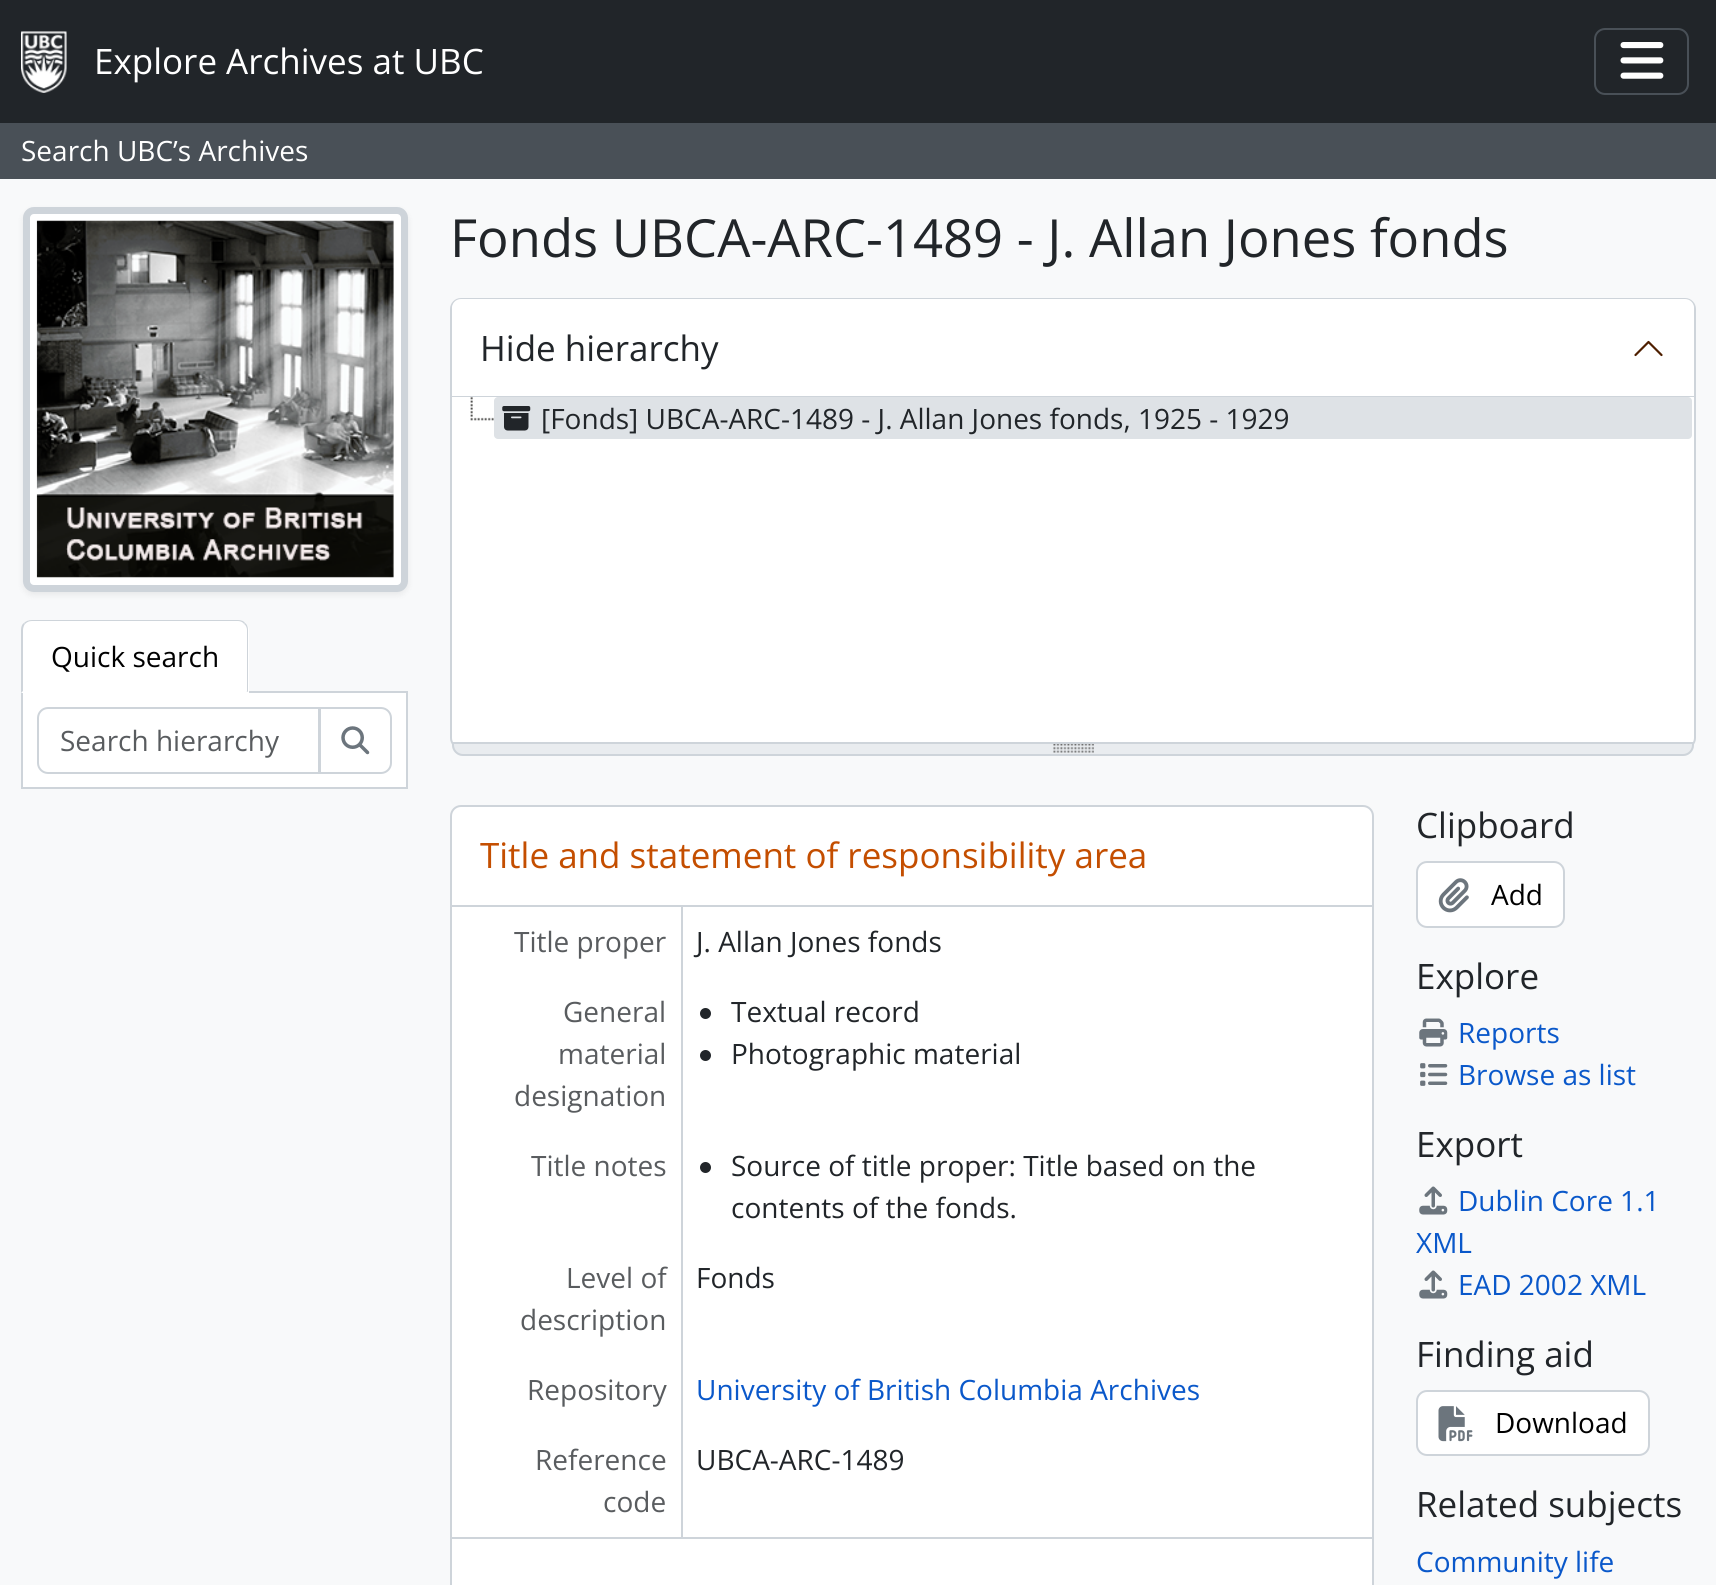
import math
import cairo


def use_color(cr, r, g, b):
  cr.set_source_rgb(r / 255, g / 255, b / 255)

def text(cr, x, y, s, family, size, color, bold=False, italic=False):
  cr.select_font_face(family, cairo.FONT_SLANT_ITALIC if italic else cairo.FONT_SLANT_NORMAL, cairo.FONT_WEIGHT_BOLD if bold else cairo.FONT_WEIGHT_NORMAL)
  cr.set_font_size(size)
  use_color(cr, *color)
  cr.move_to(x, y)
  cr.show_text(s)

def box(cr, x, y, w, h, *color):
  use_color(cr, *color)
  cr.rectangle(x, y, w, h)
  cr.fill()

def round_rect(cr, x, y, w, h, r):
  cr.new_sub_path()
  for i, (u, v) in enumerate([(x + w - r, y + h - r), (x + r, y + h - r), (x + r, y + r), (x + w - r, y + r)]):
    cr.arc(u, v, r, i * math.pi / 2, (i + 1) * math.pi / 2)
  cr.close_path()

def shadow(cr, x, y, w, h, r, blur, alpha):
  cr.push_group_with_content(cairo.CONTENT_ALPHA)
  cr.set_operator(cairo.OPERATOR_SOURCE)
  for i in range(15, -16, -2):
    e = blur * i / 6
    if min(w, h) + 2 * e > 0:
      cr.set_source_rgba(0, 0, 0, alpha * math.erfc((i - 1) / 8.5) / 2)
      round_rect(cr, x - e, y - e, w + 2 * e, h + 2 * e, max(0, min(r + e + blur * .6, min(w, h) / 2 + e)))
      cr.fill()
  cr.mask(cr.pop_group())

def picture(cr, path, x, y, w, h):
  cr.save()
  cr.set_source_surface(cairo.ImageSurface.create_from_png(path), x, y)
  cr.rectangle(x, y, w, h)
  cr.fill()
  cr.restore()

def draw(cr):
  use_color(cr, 248, 249, 250)
  cr.paint()
  box(cr, 0, 0, 1716, 123, 33, 37, 41)
  picture(cr, "img_01.png", 21, 31, 46, 62)
  round_rect(cr, 1595, 29, 93, 65, 10)
  use_color(cr, 73, 80, 87)
  cr.stroke()
  picture(cr, "img_02.png", 1620, 42, 44, 37)
  box(cr, 0, 123, 1716, 56, 73, 80, 87)
  use_color(cr, 0, 0, 0)
  shadow(cr, 23, 210, 385, 385, 11, 3.5, 0.07)
  use_color(cr, 255, 255, 255)
  round_rect(cr, 26.5, 210.5, 378, 378, 7.5)
  cr.fill_preserve()
  use_color(cr, 206, 212, 218)
  cr.set_line_width(7)
  cr.stroke()
  picture(cr, "img_03.png", 36, 220, 358, 358)
  use_color(cr, 255, 255, 255)
  cr.rectangle(22, 692, 385, 96)
  cr.fill_preserve()
  use_color(cr, 206, 212, 218)
  cr.set_line_width(2)
  cr.stroke()
  use_color(cr, 255, 255, 255)
  cr.new_path()
  cr.move_to(32, 620)
  cr.line_to(238, 620)
  cr.curve_to(244, 620, 249, 625, 249, 631)
  cr.line_to(249, 693)
  cr.line_to(21, 693)
  cr.line_to(21, 631)
  cr.curve_to(21, 625, 26, 620, 32, 620)
  cr.close_path()
  cr.fill()
  use_color(cr, 206, 212, 218)
  cr.new_path()
  cr.move_to(32, 620)
  cr.curve_to(29, 620, 26, 621, 24, 623)
  cr.line_to(25, 624)
  cr.curve_to(27, 622, 29, 621, 32, 621)
  cr.line_to(238, 621)
  cr.curve_to(240, 621, 243, 622, 244, 624)
  cr.line_to(245, 623)
  cr.curve_to(244, 621, 241, 620, 238, 620)
  cr.close_path()
  cr.fill()
  cr.new_path()
  cr.move_to(248, 692)
  cr.line_to(248, 630)
  cr.curve_to(248, 627, 247, 624, 245, 623)
  cr.line_to(244, 624)
  cr.curve_to(246, 625, 247, 628, 247, 630)
  cr.line_to(247, 691)
  cr.line_to(246, 691)
  cr.close_path()
  cr.fill()
  use_color(cr, 255, 255, 255)
  cr.new_path()
  cr.move_to(248, 693)
  cr.line_to(246, 691)
  cr.line_to(23, 691)
  cr.line_to(21, 693)
  cr.close_path()
  cr.fill()
  use_color(cr, 206, 212, 218)
  cr.new_path()
  cr.move_to(21, 693)
  cr.line_to(23, 691)
  cr.line_to(23, 630)
  cr.curve_to(23, 628, 24, 625, 25, 624)
  cr.line_to(24, 623)
  cr.curve_to(22, 624, 21, 627, 21, 630)
  cr.close_path()
  cr.fill()
  cr.new_path()
  cr.move_to(48, 708)
  cr.line_to(319, 708)
  cr.line_to(319, 773)
  cr.line_to(48, 773)
  cr.curve_to(42.5, 773, 38, 768.5, 38, 763)
  cr.line_to(38, 718)
  cr.curve_to(38, 712.5, 42.5, 708, 48, 708)
  cr.close_path()
  cr.stroke()
  use_color(cr, 255, 255, 255)
  cr.new_path()
  cr.move_to(320, 708)
  cr.line_to(381, 708)
  cr.curve_to(386.5, 708, 391, 712.5, 391, 718)
  cr.line_to(391, 763)
  cr.curve_to(391, 768.5, 386.5, 773, 381, 773)
  cr.line_to(320, 773)
  cr.close_path()
  cr.fill_preserve()
  use_color(cr, 206, 212, 218)
  cr.stroke()
  picture(cr, "img_04.png", 341, 726, 29, 29)
  use_color(cr, 255, 255, 255)
  round_rect(cr, 451, 299, 1244, 449, 10)
  cr.fill_preserve()
  use_color(cr, 206, 212, 218)
  cr.stroke()
  use_color(cr, 255, 255, 255)
  cr.new_path()
  cr.move_to(461, 299)
  cr.line_to(1685, 299)
  cr.curve_to(1690, 299, 1694, 303, 1694, 308)
  cr.line_to(1694, 397)
  cr.line_to(452, 397)
  cr.line_to(452, 308)
  cr.curve_to(452, 303, 456, 299, 461, 299)
  cr.close_path()
  cr.fill()
  box(cr, 452, 396, 1242, 1, 206, 212, 218)
  cr.new_path()
  cr.move_to(1661.5, 355)
  cr.line_to(1648.5, 342)
  cr.line_to(1635.5, 355)
  use_color(cr, 78, 31, 0)
  cr.set_line_width(2.2)
  cr.set_line_cap(cairo.LINE_CAP_ROUND)
  cr.set_line_join(cairo.LINE_JOIN_ROUND)
  cr.stroke()
  picture(cr, "img_05.png", 470, 397, 24, 24)
  use_color(cr, 222, 226, 230)
  round_rect(cr, 494, 397, 1198, 42, 4)
  cr.fill()
  picture(cr, "img_06.png", 502, 406, 29, 25)
  use_color(cr, 233, 236, 239)
  cr.new_path()
  cr.move_to(452, 742)
  cr.line_to(1694, 742)
  cr.line_to(1694, 745)
  cr.curve_to(1694, 751, 1689, 756, 1683, 756)
  cr.line_to(463, 756)
  cr.curve_to(457, 756, 452, 751, 452, 745)
  cr.close_path()
  cr.fill()
  picture(cr, "img_07.png", 1053, 744, 41, 9)
  cr.new_path()
  cr.move_to(453, 743)
  cr.line_to(1693, 743)
  cr.line_to(1693, 745)
  cr.curve_to(1693, 750.5, 1688.5, 755, 1683, 755)
  cr.line_to(463, 755)
  cr.curve_to(457.5, 755, 453, 750.5, 453, 745)
  cr.close_path()
  use_color(cr, 206, 212, 218)
  cr.set_line_width(2)
  cr.set_line_cap(cairo.LINE_CAP_BUTT)
  cr.set_line_join(cairo.LINE_JOIN_MITER)
  cr.stroke()
  use_color(cr, 255, 255, 255)
  round_rect(cr, 451, 806, 922, 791, 10)
  cr.fill_preserve()
  use_color(cr, 206, 212, 218)
  cr.stroke()
  box(cr, 452, 1537, 920, 2, 206, 212, 218)
  box(cr, 452, 905, 920, 2, 206, 212, 218)
  box(cr, 681, 907, 2, 630, 206, 212, 218)
  use_color(cr, 33, 37, 41)
  cr.arc(705.5, 1013.5, 5.5, 0, 2 * math.pi)
  cr.fill()
  cr.arc(705.5, 1055.5, 5.5, 0, 2 * math.pi)
  cr.fill()
  cr.arc(705.5, 1167.5, 5.5, 0, 2 * math.pi)
  cr.fill()
  use_color(cr, 255, 255, 255)
  round_rect(cr, 1417, 862, 147, 65, 10)
  cr.fill_preserve()
  use_color(cr, 206, 212, 218)
  cr.stroke()
  picture(cr, "img_08.png", 1438, 878, 31, 35)
  picture(cr, "img_09.png", 1419, 1018, 29, 29)
  picture(cr, "img_10.png", 1420, 1063, 28, 23)
  picture(cr, "img_11.png", 1419, 1186, 29, 29)
  picture(cr, "img_11.png", 1419, 1270, 29, 29)
  use_color(cr, 255, 255, 255)
  round_rect(cr, 1417, 1391, 232, 64, 10)
  cr.fill_preserve()
  use_color(cr, 206, 212, 218)
  cr.stroke()
  picture(cr, "img_12.png", 1438, 1406, 35, 36)
  text(cr, 94, 74, "Explore Archives at UBC", "Open Sans", 35, (255, 255, 255))
  text(cr, 21, 161, "Search UBC’s Archives", "Open Sans", 28, (255, 255, 255))
  text(cr, 51, 667, "Quick search", "Open Sans", 28, (0, 0, 0))
  text(cr, 60, 751, "Search hierarchy", "Open Sans", 28, (89, 92, 95))
  text(cr, 450, 257, "Fonds UBCA-ARC-1489 - J. Allan Jones fonds", "Open Sans", 52.55, (33, 37, 41))
  text(cr, 480, 361, "Hide hierarchy", "Open Sans", 35, (33, 37, 41))
  text(cr, 541, 429, "[Fonds] UBCA-ARC-1489 - J. Allan Jones fonds, 1925 - 1929", "Open Sans", 28, (33, 37, 41))
  text(cr, 480, 868, "Title and statement of responsibility area", "Open Sans", 35, (196, 78, 0))
  text(cr, 514, 952, "Title proper", "Open Sans", 28, (89, 92, 95))
  text(cr, 696, 952, "J. Allan Jones fonds", "Open Sans", 28, (33, 37, 41))
  text(cr, 563, 1022, "General", "Open Sans", 28, (89, 92, 95))
  text(cr, 558, 1064, "material", "Open Sans", 28, (89, 92, 95))
  text(cr, 514, 1106, "designation", "Open Sans", 28, (89, 92, 95))
  text(cr, 731, 1022, "Textual record", "Open Sans", 28, (33, 37, 41))
  text(cr, 731, 1064, "Photographic material", "Open Sans", 28, (33, 37, 41))
  text(cr, 531, 1176, "Title notes", "Open Sans", 28, (89, 92, 95))
  text(cr, 731, 1176, "Source of title proper: Title based on the", "Open Sans", 28, (33, 37, 41))
  text(cr, 731, 1218, "contents of the fonds.", "Open Sans", 28, (33, 37, 41))
  text(cr, 566, 1288, "Level of", "Open Sans", 28, (89, 92, 95))
  text(cr, 520, 1330, "description", "Open Sans", 28, (89, 92, 95))
  text(cr, 696, 1288, "Fonds", "Open Sans", 28, (33, 37, 41))
  text(cr, 527, 1400, "Repository", "Open Sans", 28, (89, 92, 95))
  text(cr, 696, 1400, "University of British Columbia Archives", "Open Sans", 28, (10, 88, 202))
  text(cr, 535, 1470, "Reference", "Open Sans", 28, (89, 92, 95))
  text(cr, 603, 1512, "code", "Open Sans", 28, (89, 92, 95))
  text(cr, 696, 1470, "UBCA-ARC-1489", "Open Sans", 28, (33, 37, 41))
  text(cr, 1416, 838, "Clipboard", "Open Sans", 35, (33, 37, 41))
  text(cr, 1491, 905, "Add", "Open Sans", 28, (0, 0, 0))
  text(cr, 1416, 989, "Explore", "Open Sans", 35, (33, 37, 41))
  text(cr, 1458, 1043, "Reports", "Open Sans", 28, (10, 88, 202))
  text(cr, 1458, 1085, "Browse as list", "Open Sans", 28, (10, 88, 202))
  text(cr, 1416, 1157, "Export", "Open Sans", 35, (33, 37, 41))
  text(cr, 1458, 1211, "Dublin Core 1.1", "Open Sans", 28, (10, 88, 202))
  text(cr, 1416, 1253, "XML", "Open Sans", 28, (10, 88, 202))
  text(cr, 1458, 1295, "EAD 2002 XML", "Open Sans", 28, (10, 88, 202))
  text(cr, 1416, 1367, "Finding aid", "Open Sans", 35, (33, 37, 41))
  text(cr, 1495, 1433, "Download", "Open Sans", 28, (0, 0, 0))
  text(cr, 1416, 1517, "Related subjects", "Open Sans", 35, (33, 37, 41))
  text(cr, 1416, 1572, "Community life", "Open Sans", 28, (10, 88, 202))


surface = cairo.ImageSurface(cairo.FORMAT_RGB24, 1716, 1585)
cr = cairo.Context(surface)
options = cairo.FontOptions()
options.set_hint_metrics(cairo.HINT_METRICS_OFF)
options.set_hint_style(cairo.HINT_STYLE_NONE)
cr.set_font_options(options)
cr.set_miter_limit(4)
draw(cr)
surface.write_to_png("out.png")
